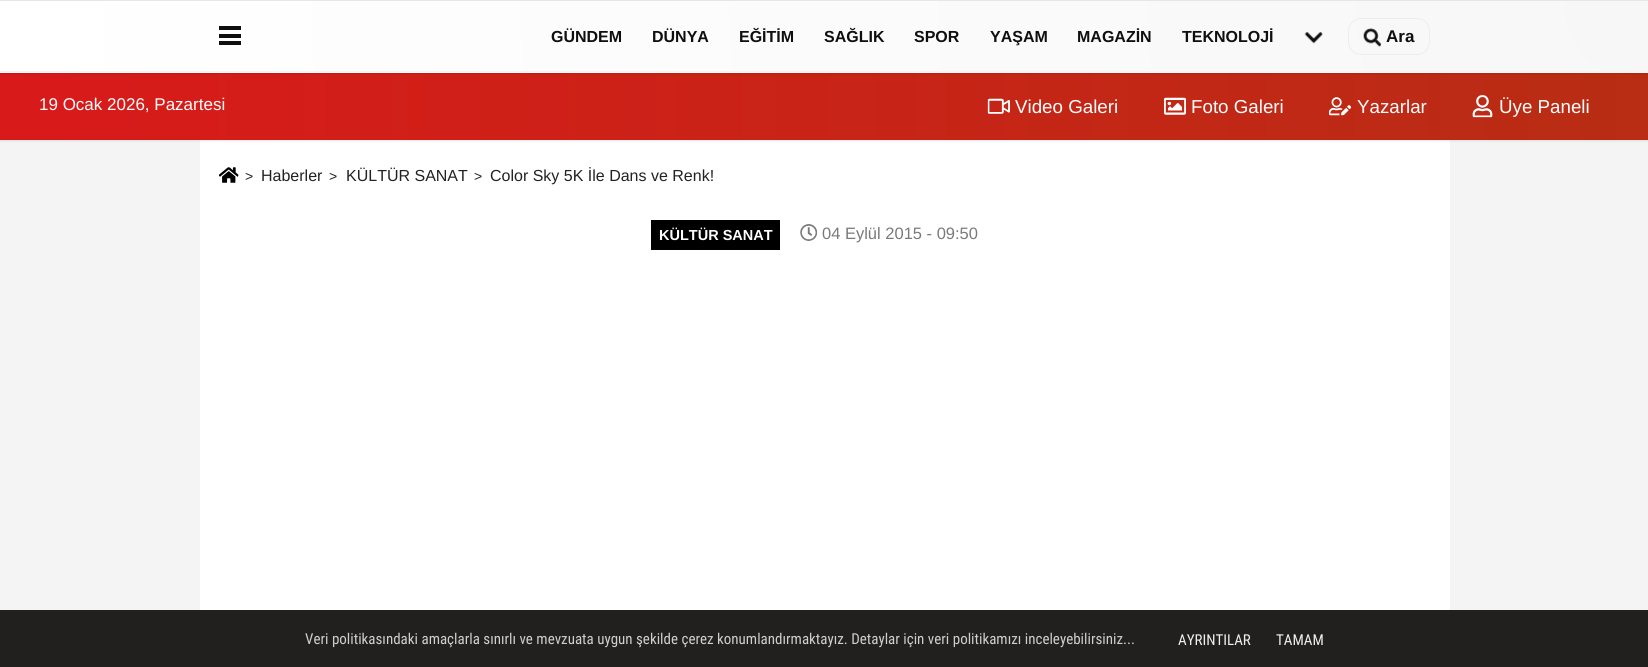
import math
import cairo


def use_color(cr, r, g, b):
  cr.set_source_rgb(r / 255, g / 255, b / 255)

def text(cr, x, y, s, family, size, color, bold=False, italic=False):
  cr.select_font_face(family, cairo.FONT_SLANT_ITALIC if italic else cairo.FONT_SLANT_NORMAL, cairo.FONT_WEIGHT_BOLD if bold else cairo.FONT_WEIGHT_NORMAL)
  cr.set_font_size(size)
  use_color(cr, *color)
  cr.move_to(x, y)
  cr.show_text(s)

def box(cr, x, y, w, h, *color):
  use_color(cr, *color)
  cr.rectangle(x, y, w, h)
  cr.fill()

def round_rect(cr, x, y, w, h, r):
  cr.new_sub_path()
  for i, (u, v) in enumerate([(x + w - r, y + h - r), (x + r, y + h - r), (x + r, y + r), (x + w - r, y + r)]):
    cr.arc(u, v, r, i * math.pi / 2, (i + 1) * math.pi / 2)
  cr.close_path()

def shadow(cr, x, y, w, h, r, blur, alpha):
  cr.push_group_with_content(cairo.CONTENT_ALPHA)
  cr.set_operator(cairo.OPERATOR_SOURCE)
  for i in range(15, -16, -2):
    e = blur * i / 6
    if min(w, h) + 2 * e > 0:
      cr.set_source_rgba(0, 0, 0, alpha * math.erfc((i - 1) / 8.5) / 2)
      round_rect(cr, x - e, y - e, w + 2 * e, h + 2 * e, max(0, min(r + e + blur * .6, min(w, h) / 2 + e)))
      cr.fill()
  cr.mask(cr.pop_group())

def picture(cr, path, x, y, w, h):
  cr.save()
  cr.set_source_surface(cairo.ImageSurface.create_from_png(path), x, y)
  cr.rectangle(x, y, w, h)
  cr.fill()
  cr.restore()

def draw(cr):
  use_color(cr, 244, 244, 244)
  cr.paint()
  box(cr, 0, 610, 1648, 57, 34, 31, 31)
  box(cr, 0, 0, 1648, 1, 230, 230, 230)
  box(cr, 200, 140, 1250, 470, 255, 255, 255)
  use_color(cr, 0, 0, 0)
  shadow(cr, 0, 74, 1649, 67, 0, 1, 0.1)
  gradient = cairo.LinearGradient(0, 106, 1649, 106)
  gradient.add_color_stop_rgba(0, 0.851, 0.102, 0.102, 1)
  gradient.add_color_stop_rgba(1, 0.722, 0.176, 0.078, 1)
  cr.set_source(gradient)
  cr.rectangle(0, 73, 1648, 67)
  cr.fill()
  use_color(cr, 0, 0, 0)
  shadow(cr, 0, 3, 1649, 71, 0, 1, 0.1)
  gradient = cairo.RadialGradient(1649, 1.2, 0, 1649, 1.2, 1650)
  gradient.add_color_stop_rgba(0, 0.969, 0.969, 0.969, 1)
  gradient.add_color_stop_rgba(1, 1, 1, 1, 1)
  cr.set_source(gradient)
  cr.rectangle(0, 1, 1648, 70)
  cr.fill()
  gradient = cairo.RadialGradient(1649, 71, 0, 1649, 71, 1650)
  gradient.add_color_stop_rgba(0, 0.969, 0.969, 0.969, 1)
  gradient.add_color_stop_rgba(1, 1, 1, 1, 1)
  cr.set_source(gradient)
  cr.rectangle(0, 72, 1648, 1)
  cr.fill()
  box(cr, 0, 71, 1648, 1, 245, 245, 245)
  box(cr, 219, 26, 22, 4, 15, 15, 15)
  box(cr, 219, 34, 22, 4, 15, 15, 15)
  box(cr, 219, 41, 22, 4, 15, 15, 15)
  picture(cr, "img_01.png", 1304, 32, 19, 12)
  round_rect(cr, 1348.5, 18.5, 81, 36, 12.5)
  use_color(cr, 237, 237, 237)
  cr.set_line_width(1)
  cr.stroke()
  picture(cr, "img_02.png", 1363, 28, 19, 19)
  picture(cr, "img_03.png", 987, 98, 23, 16)
  picture(cr, "img_04.png", 1164, 97, 22, 18)
  picture(cr, "img_05.png", 1329, 97, 22, 19)
  picture(cr, "img_06.png", 1472, 95, 21, 23)
  picture(cr, "img_07.png", 219, 167, 20, 16)
  box(cr, 651, 220, 129, 30, 0, 0, 0)
  picture(cr, "img_08.png", 800, 224, 18, 17)
  text(cr, 551, 42, "GÜNDEM", "Liberation Sans", 16, (15, 15, 15), bold=True)
  text(cr, 652, 42, "DÜNYA", "Liberation Sans", 16, (15, 15, 15), bold=True)
  text(cr, 739, 42, "EĞİTİM", "Liberation Sans", 16, (15, 15, 15), bold=True)
  text(cr, 824, 42, "SAĞLIK", "Liberation Sans", 16, (15, 15, 15), bold=True)
  text(cr, 914, 42, "SPOR", "Liberation Sans", 16, (15, 15, 15), bold=True)
  text(cr, 990, 42, "YAŞAM", "Liberation Sans", 16, (15, 15, 15), bold=True)
  text(cr, 1077, 42, "MAGAZİN", "Liberation Sans", 16, (15, 15, 15), bold=True)
  text(cr, 1182, 42, "TEKNOLOJİ", "Liberation Sans", 16, (15, 15, 15), bold=True)
  text(cr, 1386, 42, "Ara", "Liberation Sans", 17, (15, 15, 15), bold=True)
  text(cr, 39, 110, "19 Ocak 2026, Pazartesi", "Liberation Sans", 17, (255, 255, 255))
  text(cr, 1015, 113, "Video Galeri", "Liberation Sans", 18.75, (255, 255, 255))
  text(cr, 1191, 113, "Foto Galeri", "Liberation Sans", 18.75, (255, 255, 255))
  text(cr, 1357, 113, "Yazarlar", "Liberation Sans", 18.75, (255, 255, 255))
  text(cr, 1499, 113, "Üye Paneli", "Liberation Sans", 18.75, (255, 255, 255))
  text(cr, 245, 181, ">", "Liberation Sans", 14, (34, 34, 34))
  text(cr, 261, 181, "Haberler", "Liberation Sans", 16, (34, 34, 34))
  text(cr, 329, 181, ">", "Liberation Sans", 14, (34, 34, 34))
  text(cr, 346, 181, "KÜLTÜR SANAT", "Liberation Sans", 16, (34, 34, 34))
  text(cr, 474, 181, ">", "Liberation Sans", 14, (34, 34, 34))
  text(cr, 490, 181, "Color Sky 5K İle Dans ve Renk!", "Liberation Sans", 16, (34, 34, 34))
  text(cr, 659, 240, "KÜLTÜR SANAT", "Liberation Sans", 14.5, (255, 255, 255), bold=True)
  text(cr, 822, 239, "04 Eylül 2015 - 09:50", "Liberation Sans", 16.5, (122, 122, 122))
  text(cr, 305, 644, "Veri politikasındaki amaçlarla sınırlı ve mevzuata uygun şekilde çerez konumlandırmaktayız. Detaylar için veri politikamızı inceleyebilirsiniz...", "Roboto Condensed", 15, (207, 207, 207))
  text(cr, 1178, 645, "AYRINTILAR", "Roboto Condensed", 15, (239, 239, 239))
  text(cr, 1276, 645, "TAMAM", "Roboto Condensed", 15, (239, 239, 239))


surface = cairo.ImageSurface(cairo.FORMAT_RGB24, 1648, 667)
cr = cairo.Context(surface)
options = cairo.FontOptions()
options.set_hint_metrics(cairo.HINT_METRICS_OFF)
options.set_hint_style(cairo.HINT_STYLE_NONE)
cr.set_font_options(options)
cr.set_miter_limit(4)
draw(cr)
surface.write_to_png("out.png")
